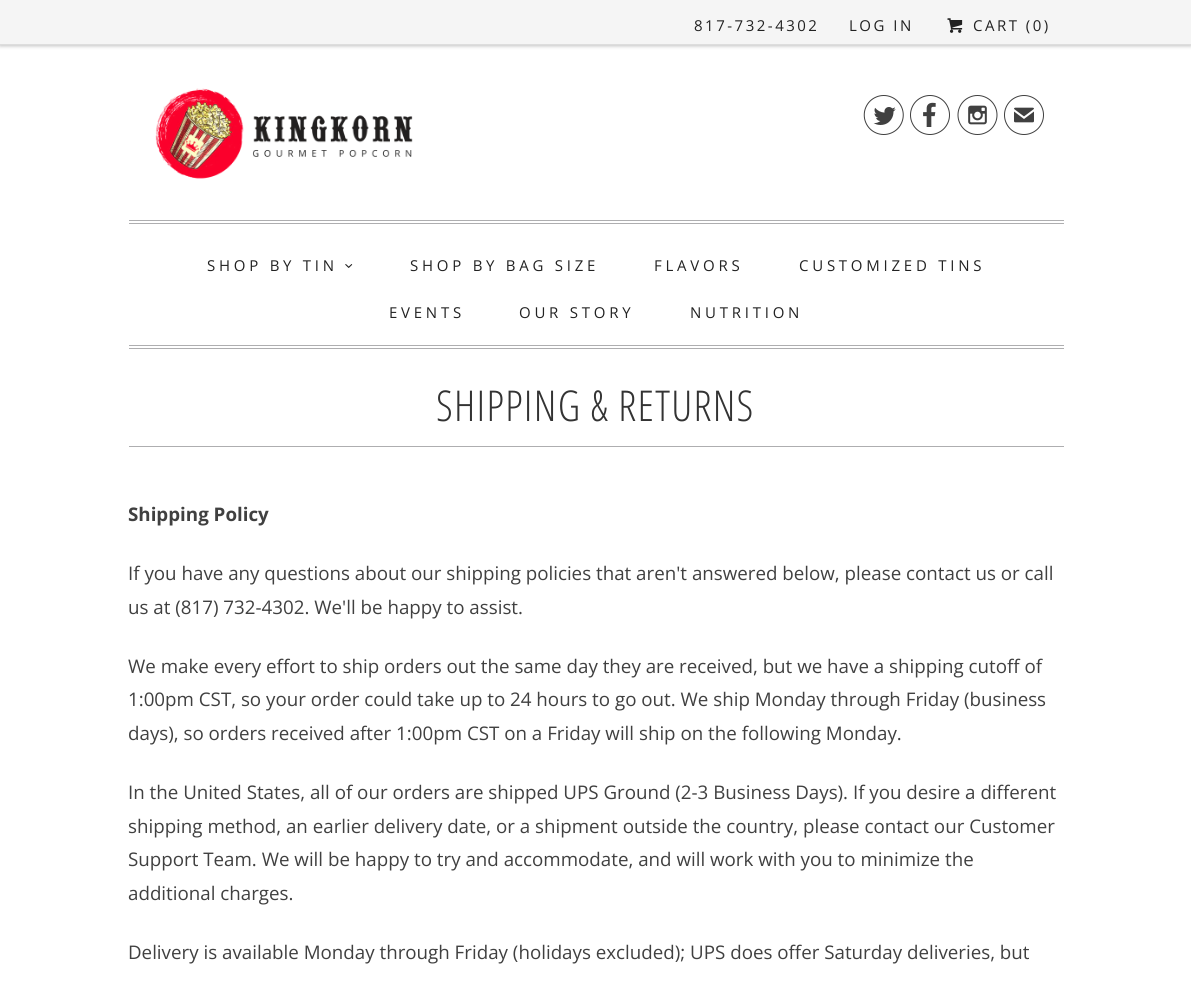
import math
import cairo


def use_color(cr, r, g, b):
  cr.set_source_rgb(r / 255, g / 255, b / 255)

def text(cr, x, y, s, family, size, color, bold=False, italic=False):
  cr.select_font_face(family, cairo.FONT_SLANT_ITALIC if italic else cairo.FONT_SLANT_NORMAL, cairo.FONT_WEIGHT_BOLD if bold else cairo.FONT_WEIGHT_NORMAL)
  cr.set_font_size(size)
  use_color(cr, *color)
  cr.move_to(x, y)
  cr.show_text(s)

def spaced_text(cr, x, y, s, letter, word):
  cr.move_to(x, y)
  for ch in s:
    cr.show_text(ch)
    cr.rel_move_to(letter + word * (ch == ' '), 0)

def box(cr, x, y, w, h, *color):
  use_color(cr, *color)
  cr.rectangle(x, y, w, h)
  cr.fill()

def round_rect(cr, x, y, w, h, r):
  cr.new_sub_path()
  for i, (u, v) in enumerate([(x + w - r, y + h - r), (x + r, y + h - r), (x + r, y + r), (x + w - r, y + r)]):
    cr.arc(u, v, r, i * math.pi / 2, (i + 1) * math.pi / 2)
  cr.close_path()

def shadow(cr, x, y, w, h, r, blur, alpha):
  cr.push_group_with_content(cairo.CONTENT_ALPHA)
  cr.set_operator(cairo.OPERATOR_SOURCE)
  for i in range(15, -16, -2):
    e = blur * i / 6
    if min(w, h) + 2 * e > 0:
      cr.set_source_rgba(0, 0, 0, alpha * math.erfc((i - 1) / 8.5) / 2)
      round_rect(cr, x - e, y - e, w + 2 * e, h + 2 * e, max(0, min(r + e + blur * .6, min(w, h) / 2 + e)))
      cr.fill()
  cr.mask(cr.pop_group())

def picture(cr, path, x, y, w, h):
  cr.save()
  cr.set_source_surface(cairo.ImageSurface.create_from_png(path), x, y)
  cr.rectangle(x, y, w, h)
  cr.fill()
  cr.restore()

def draw(cr):
  use_color(cr, 255, 255, 255)
  cr.paint()
  use_color(cr, 0, 0, 0)
  shadow(cr, 0, 1, 1191, 45, 0, 2, 0.25)
  box(cr, 0, 0, 1191, 44, 245, 245, 245)
  box(cr, 0, 44, 1191, 1, 221, 221, 221)
  picture(cr, "img_01.png", 947, 18, 16, 15)
  picture(cr, "img_02.png", 155, 88, 258, 91)
  picture(cr, "img_03.png", 863, 95, 41, 40)
  picture(cr, "img_04.png", 910, 95, 40, 40)
  picture(cr, "img_05.png", 957, 95, 41, 40)
  box(cr, 129, 220, 935, 1, 174, 174, 176)
  box(cr, 129, 223, 935, 1, 174, 174, 176)
  box(cr, 129, 345, 935, 1, 174, 174, 176)
  box(cr, 129, 348, 935, 1, 174, 174, 176)
  picture(cr, "img_06.png", 345, 264, 8, 4)
  box(cr, 129, 446, 935, 1, 174, 174, 176)
  cr.select_font_face("Open Sans")
  cr.set_font_size(15)
  use_color(cr, 34, 34, 34)
  spaced_text(cr, 694, 31, "817-732-4302", 2.5, 0)
  spaced_text(cr, 849, 31, "LOG IN", 2.5, 0)
  spaced_text(cr, 973, 31, "CART (0)", 2.5, 0)
  text(cr, 1004, 135, "✉", "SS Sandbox", 40, (64, 64, 64))
  cr.select_font_face("Open Sans")
  cr.set_font_size(15)
  use_color(cr, 34, 34, 34)
  spaced_text(cr, 207, 271, "SHOP BY TIN", 3.75, 0)
  spaced_text(cr, 410, 271, "SHOP BY BAG SIZE", 3.75, 0)
  spaced_text(cr, 654, 271, "FLAVORS", 3.75, 0)
  spaced_text(cr, 799, 271, "CUSTOMIZED TINS", 3.75, 0)
  spaced_text(cr, 389, 318, "EVENTS", 3.75, 0)
  spaced_text(cr, 519, 318, "OUR STORY", 3.75, 0)
  spaced_text(cr, 690, 318, "NUTRITION", 3.75, 0)
  cr.select_font_face("Open Sans Condensed Light")
  cr.set_font_size(42.5)
  use_color(cr, 51, 51, 51)
  spaced_text(cr, 436, 421, "SHIPPING & RETURNS", 1.25, 0)
  text(cr, 128, 521, "Shipping Policy", "Open Sans", 18.75, (64, 64, 64), bold=True)
  text(cr, 128, 580, "If you have any questions about our shipping policies that aren't answered below, please contact us or call", "Open Sans", 18.75, (64, 64, 64))
  text(cr, 128, 614, "us at (817) 732-4302. We'll be happy to assist.", "Open Sans", 18.75, (64, 64, 64))
  text(cr, 128, 673, "We make every effort to ship orders out the same day they are received, but we have a shipping cutoff of", "Open Sans", 18.75, (64, 64, 64))
  text(cr, 128, 706, "1:00pm CST, so your order could take up to 24 hours to go out. We ship Monday through Friday (business", "Open Sans", 18.75, (64, 64, 64))
  text(cr, 128, 740, "days), so orders received after 1:00pm CST on a Friday will ship on the following Monday.", "Open Sans", 18.75, (64, 64, 64))
  text(cr, 128, 799, "In the United States, all of our orders are shipped UPS Ground (2-3 Business Days). If you desire a different", "Open Sans", 18.75, (64, 64, 64))
  text(cr, 128, 833, "shipping method, an earlier delivery date, or a shipment outside the country, please contact our Customer", "Open Sans", 18.75, (64, 64, 64))
  text(cr, 128, 866, "Support Team. We will be happy to try and accommodate, and will work with you to minimize the", "Open Sans", 18.75, (64, 64, 64))
  text(cr, 128, 900, "additional charges.", "Open Sans", 18.75, (64, 64, 64))
  text(cr, 128, 959, "Delivery is available Monday through Friday (holidays excluded); UPS does offer Saturday deliveries, but", "Open Sans", 18.75, (64, 64, 64))


surface = cairo.ImageSurface(cairo.FORMAT_RGB24, 1191, 988)
cr = cairo.Context(surface)
options = cairo.FontOptions()
options.set_hint_metrics(cairo.HINT_METRICS_OFF)
options.set_hint_style(cairo.HINT_STYLE_NONE)
cr.set_font_options(options)
cr.set_miter_limit(4)
draw(cr)
surface.write_to_png("out.png")
